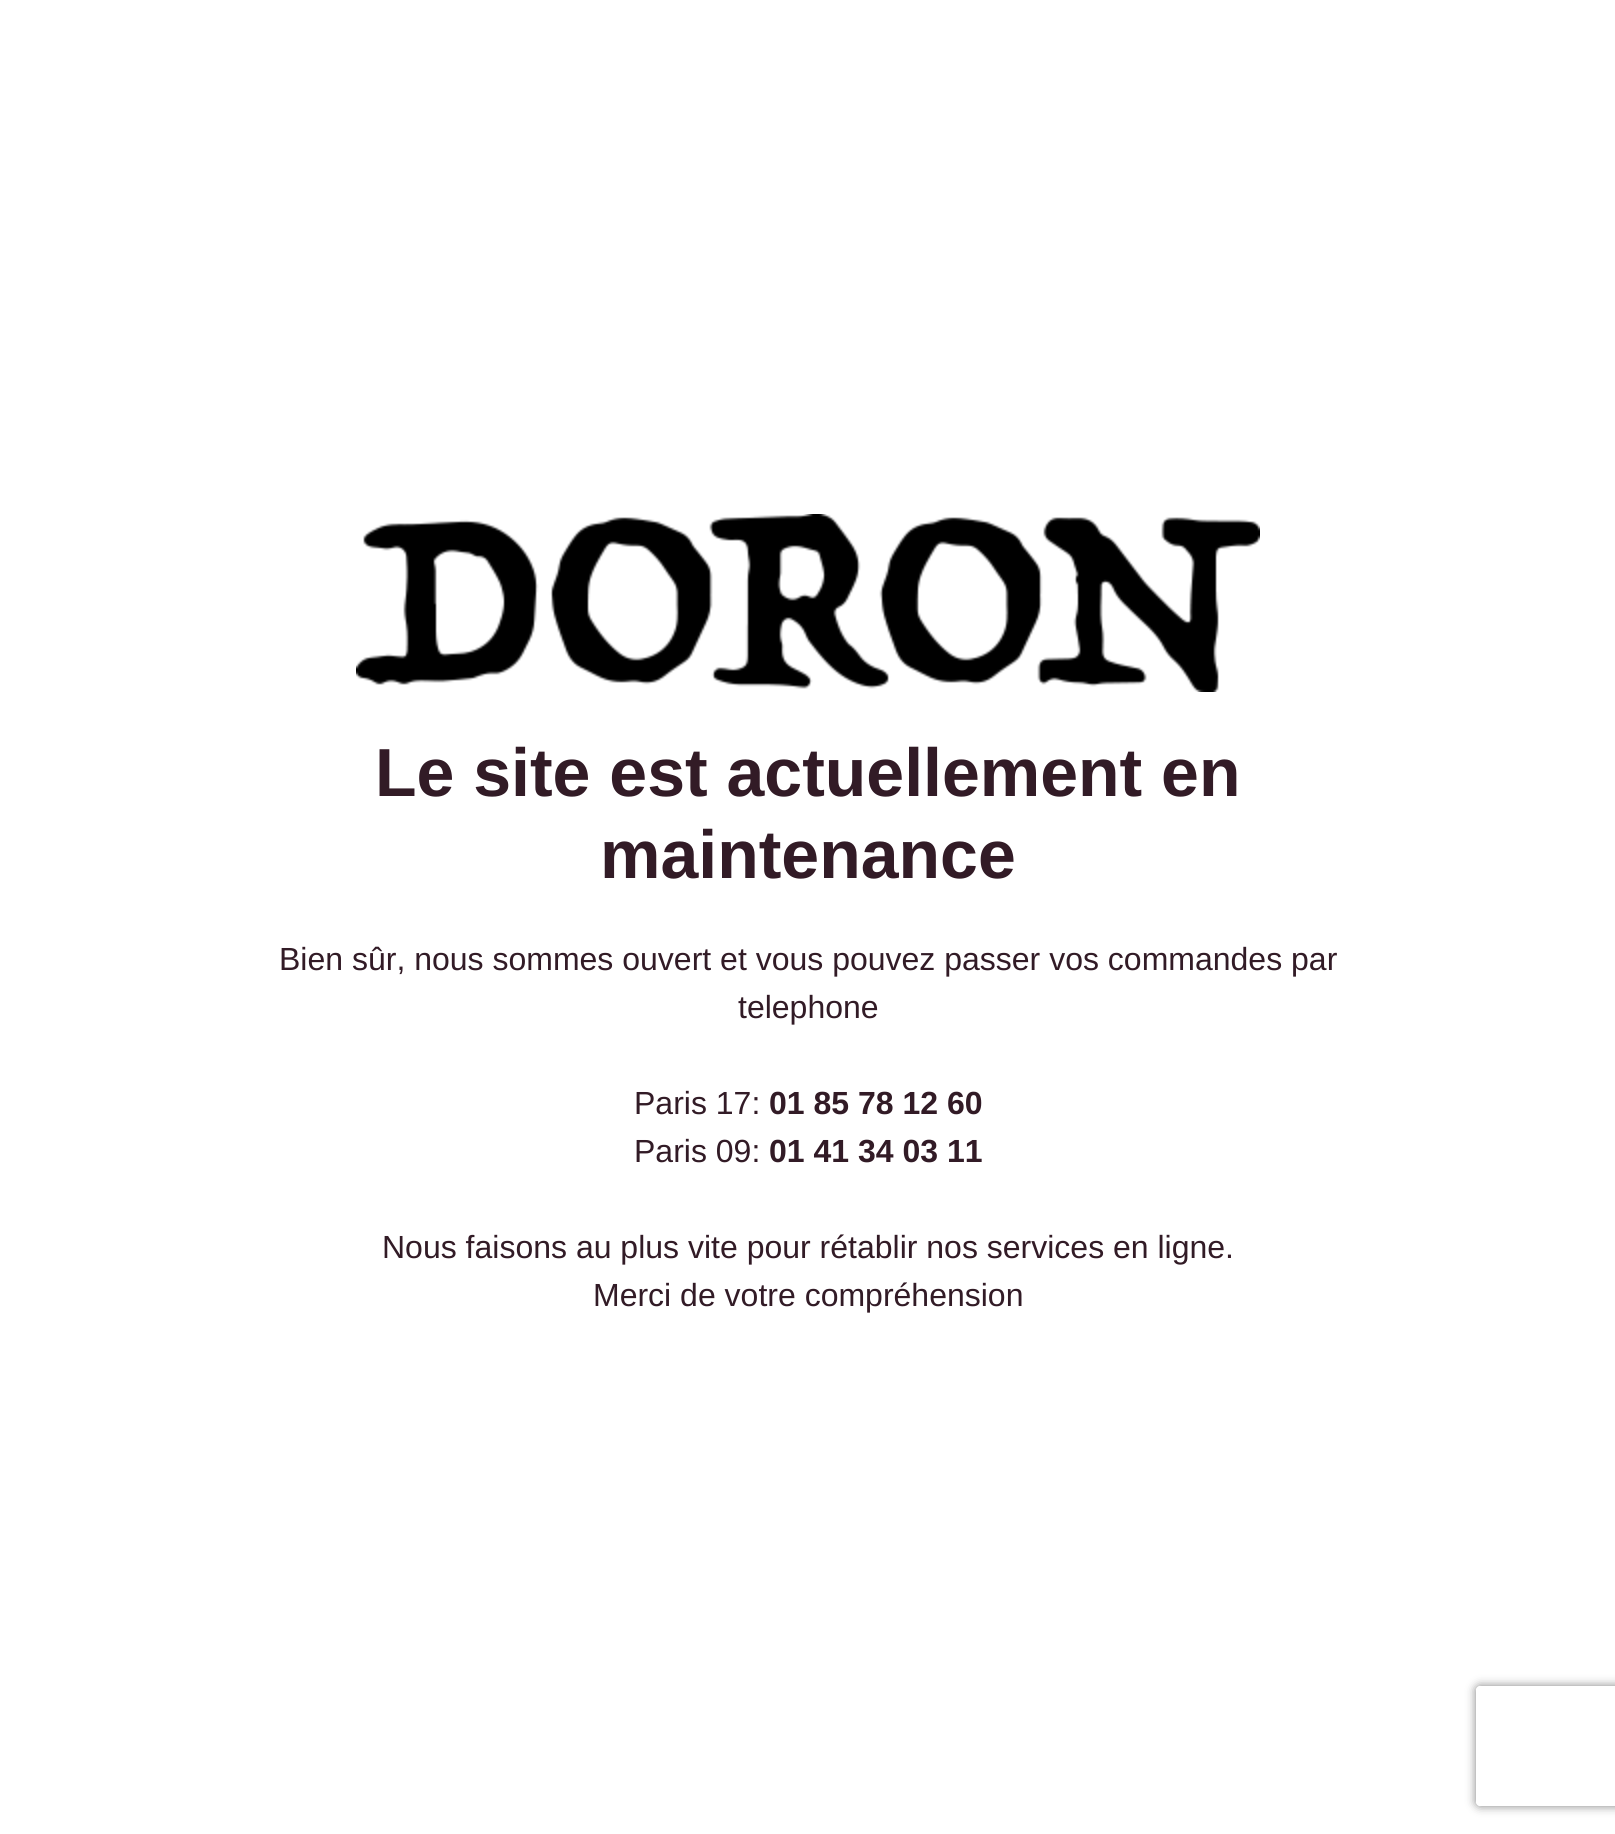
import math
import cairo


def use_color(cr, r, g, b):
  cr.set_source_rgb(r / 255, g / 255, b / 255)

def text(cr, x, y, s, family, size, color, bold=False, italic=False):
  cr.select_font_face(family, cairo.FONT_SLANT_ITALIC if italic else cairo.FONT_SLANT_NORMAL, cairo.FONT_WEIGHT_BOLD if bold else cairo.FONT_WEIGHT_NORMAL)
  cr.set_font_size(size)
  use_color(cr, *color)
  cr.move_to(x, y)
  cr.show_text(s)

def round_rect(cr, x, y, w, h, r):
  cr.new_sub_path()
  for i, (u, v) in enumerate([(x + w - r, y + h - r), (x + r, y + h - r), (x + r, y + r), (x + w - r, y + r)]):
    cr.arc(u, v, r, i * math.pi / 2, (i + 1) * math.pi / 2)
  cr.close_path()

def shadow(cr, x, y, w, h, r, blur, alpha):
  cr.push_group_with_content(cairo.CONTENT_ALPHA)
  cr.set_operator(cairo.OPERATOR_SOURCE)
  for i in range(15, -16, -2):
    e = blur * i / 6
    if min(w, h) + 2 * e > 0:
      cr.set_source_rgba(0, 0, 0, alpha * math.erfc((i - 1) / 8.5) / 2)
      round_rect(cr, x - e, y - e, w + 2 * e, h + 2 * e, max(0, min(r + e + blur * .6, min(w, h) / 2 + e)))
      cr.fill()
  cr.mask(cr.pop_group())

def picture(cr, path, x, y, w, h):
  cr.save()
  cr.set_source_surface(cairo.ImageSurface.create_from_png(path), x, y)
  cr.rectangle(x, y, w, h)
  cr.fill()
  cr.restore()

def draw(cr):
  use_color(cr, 255, 255, 255)
  cr.paint()
  picture(cr, "img_01.png", 356, 514, 904, 178)
  cr.save()
  cr.set_fill_rule(cairo.FILL_RULE_EVEN_ODD)
  cr.new_path()
  cr.move_to(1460, 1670)
  cr.line_to(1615, 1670)
  cr.line_to(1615, 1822)
  cr.line_to(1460, 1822)
  cr.close_path()
  cr.move_to(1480, 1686)
  cr.line_to(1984, 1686)
  cr.curve_to(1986, 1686, 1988, 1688, 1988, 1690)
  cr.line_to(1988, 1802)
  cr.curve_to(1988, 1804, 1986, 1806, 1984, 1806)
  cr.line_to(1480, 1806)
  cr.curve_to(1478, 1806, 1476, 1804, 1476, 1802)
  cr.line_to(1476, 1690)
  cr.curve_to(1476, 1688, 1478, 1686, 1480, 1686)
  cr.close_path()
  cr.clip()
  use_color(cr, 128, 128, 128)
  shadow(cr, 1476, 1686, 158, 120, 4, 5, 1)
  cr.restore()
  text(cr, 375, 796, "Le site est actuellement en", "Liberation Sans", 68, (50, 27, 38), bold=True)
  text(cr, 600, 878, "maintenance", "Liberation Sans", 68, (50, 27, 38), bold=True)
  text(cr, 279, 970, "Bien sûr, nous sommes ouvert et vous pouvez passer vos commandes par", "Liberation Sans", 32, (50, 27, 38))
  text(cr, 738, 1018, "telephone", "Liberation Sans", 32, (50, 27, 38))
  text(cr, 634, 1114, "Paris 17:", "Liberation Sans", 32, (50, 27, 38))
  text(cr, 769, 1114, "01 85 78 12 60", "Liberation Sans", 32, (50, 27, 38), bold=True)
  text(cr, 634, 1162, "Paris 09:", "Liberation Sans", 32, (50, 27, 38))
  text(cr, 769, 1162, "01 41 34 03 11", "Liberation Sans", 32, (50, 27, 38), bold=True)
  text(cr, 382, 1258, "Nous faisons au plus vite pour rétablir nos services en ligne.", "Liberation Sans", 32, (50, 27, 38))
  text(cr, 593, 1306, "Merci de votre compréhension", "Liberation Sans", 32, (50, 27, 38))


surface = cairo.ImageSurface(cairo.FORMAT_RGB24, 1615, 1834)
cr = cairo.Context(surface)
options = cairo.FontOptions()
options.set_hint_metrics(cairo.HINT_METRICS_OFF)
options.set_hint_style(cairo.HINT_STYLE_NONE)
cr.set_font_options(options)
cr.set_miter_limit(4)
draw(cr)
surface.write_to_png("out.png")
